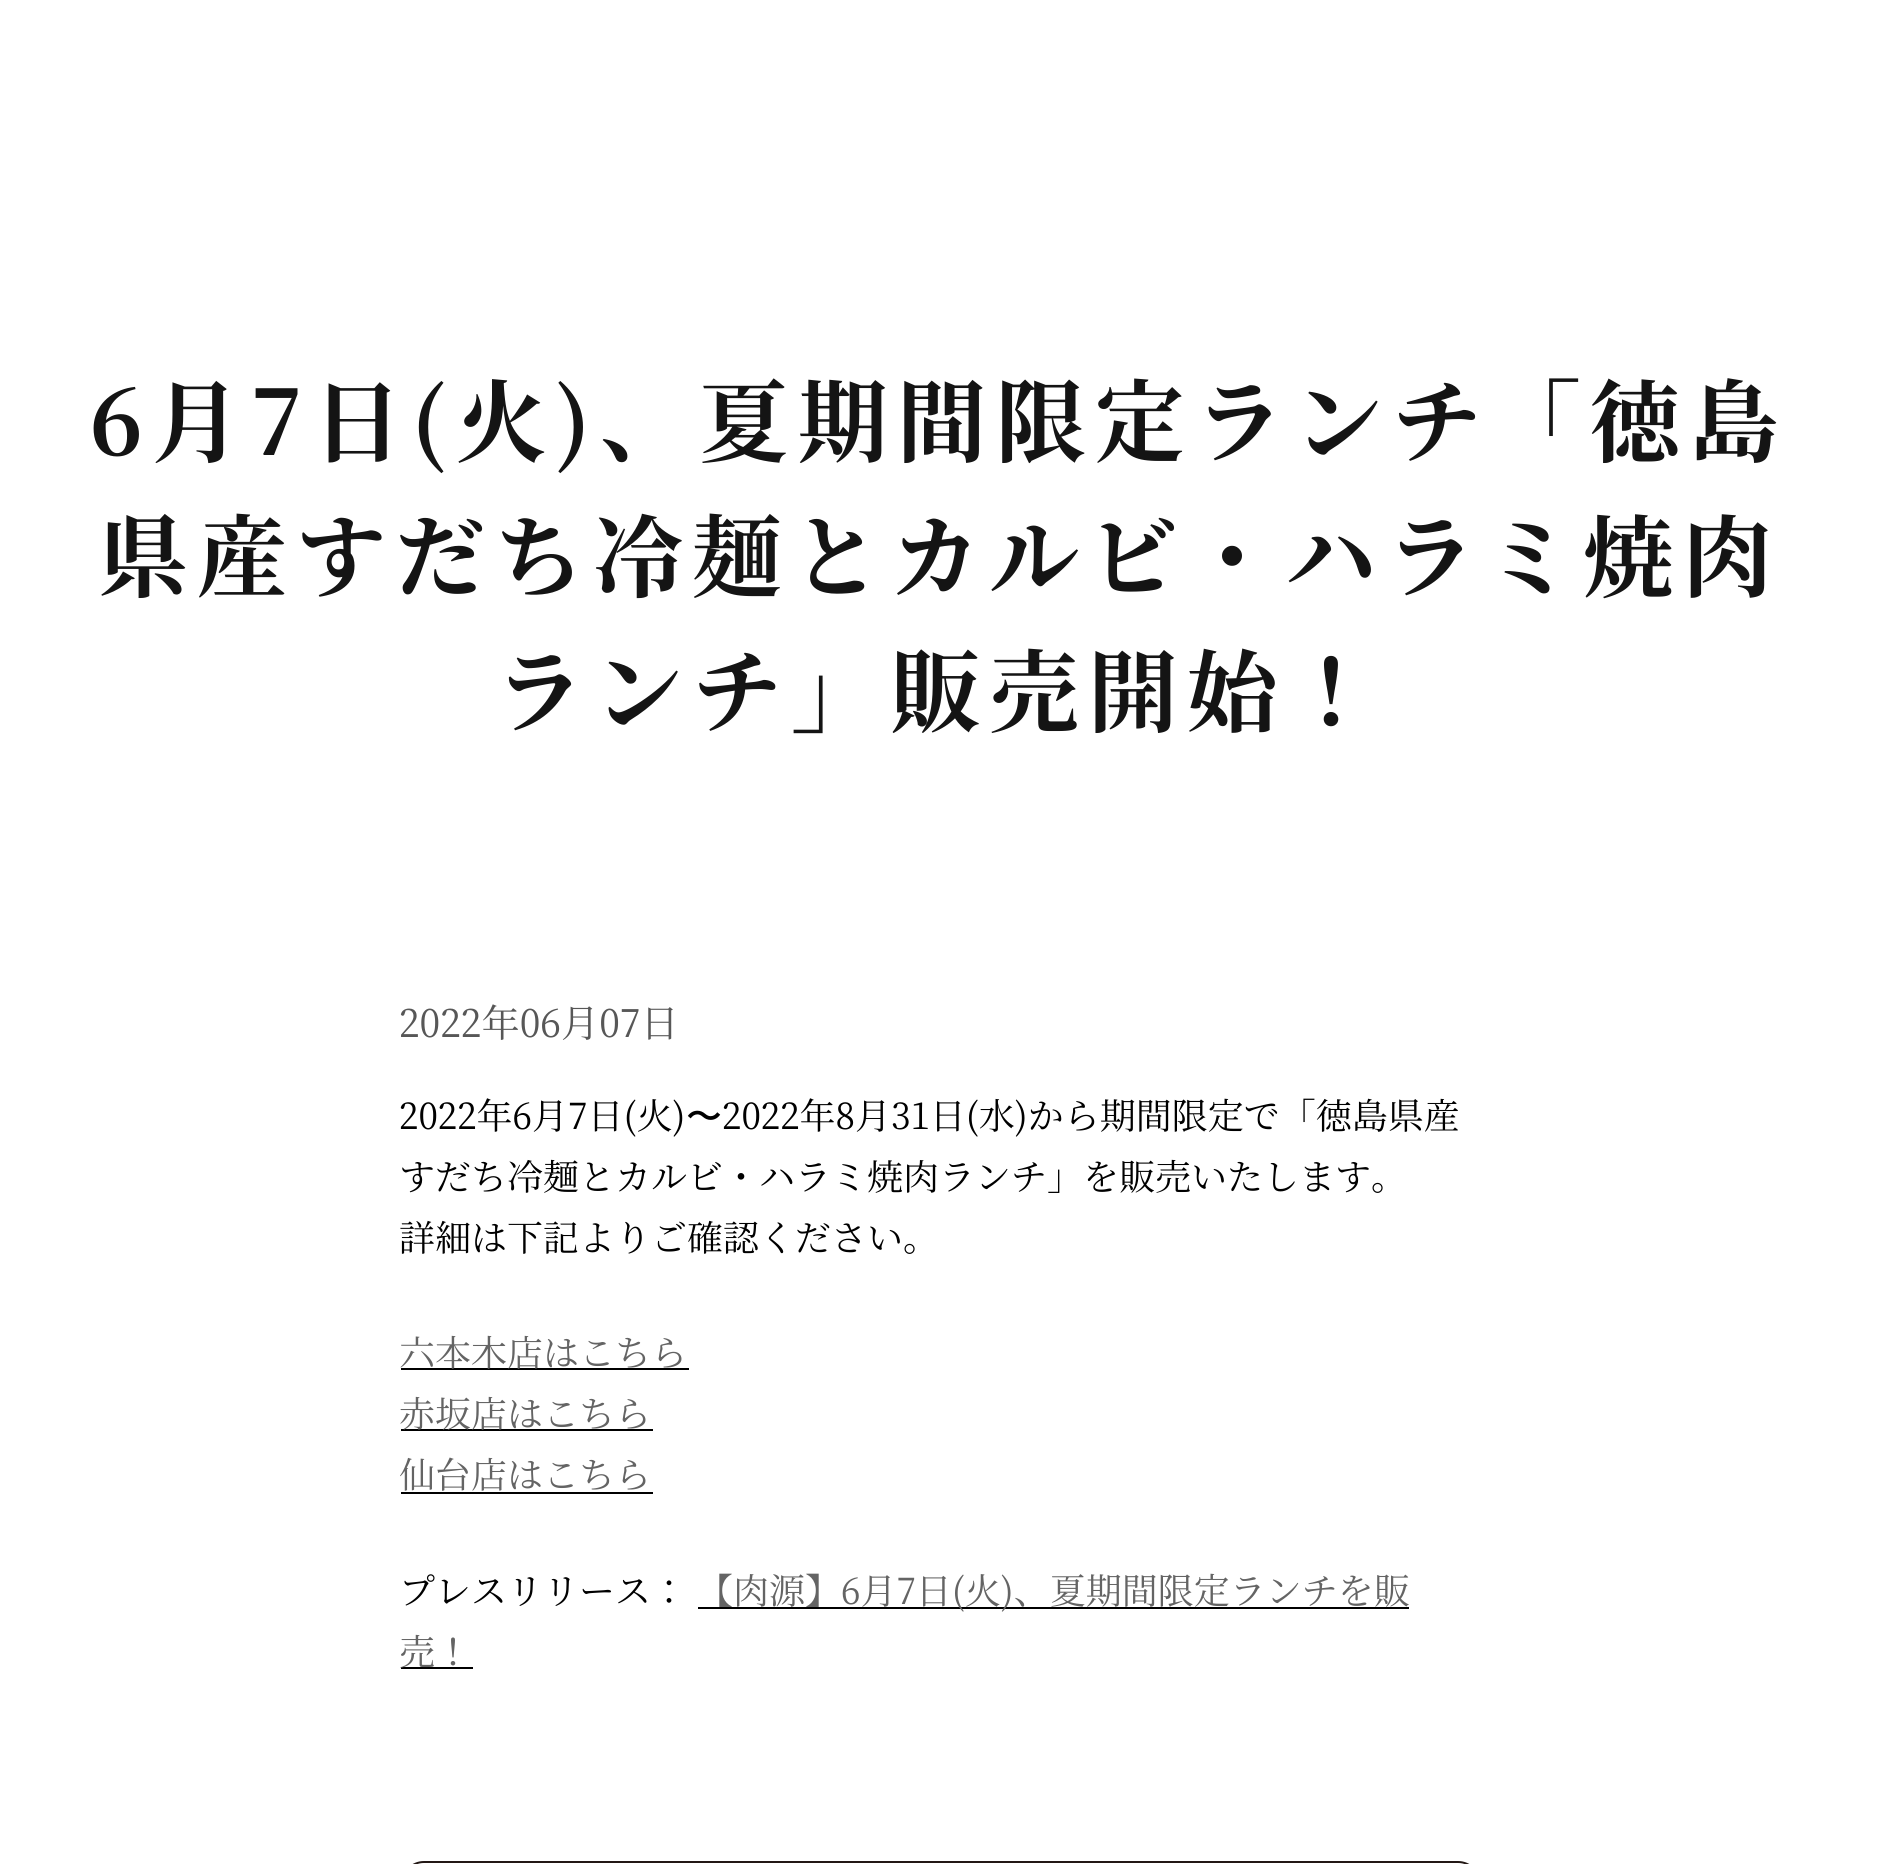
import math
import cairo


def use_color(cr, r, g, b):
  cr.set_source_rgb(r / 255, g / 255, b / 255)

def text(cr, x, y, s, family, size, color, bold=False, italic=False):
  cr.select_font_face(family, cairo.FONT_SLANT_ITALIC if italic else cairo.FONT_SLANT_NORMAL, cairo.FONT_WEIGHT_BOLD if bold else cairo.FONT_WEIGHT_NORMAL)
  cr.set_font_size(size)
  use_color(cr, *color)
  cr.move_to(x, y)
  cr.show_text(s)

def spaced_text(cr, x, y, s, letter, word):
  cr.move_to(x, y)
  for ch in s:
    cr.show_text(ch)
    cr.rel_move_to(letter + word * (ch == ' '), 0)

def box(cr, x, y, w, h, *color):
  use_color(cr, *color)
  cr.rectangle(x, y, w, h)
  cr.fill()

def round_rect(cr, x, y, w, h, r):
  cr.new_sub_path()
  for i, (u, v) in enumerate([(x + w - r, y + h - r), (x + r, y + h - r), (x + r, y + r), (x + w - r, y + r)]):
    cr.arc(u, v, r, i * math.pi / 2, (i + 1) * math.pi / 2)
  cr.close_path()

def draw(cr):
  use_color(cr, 255, 255, 255)
  cr.paint()
  box(cr, 401, 1368, 288, 2, 0, 0, 0)
  box(cr, 401, 1429, 252, 2, 0, 0, 0)
  box(cr, 401, 1492, 252, 2, 0, 0, 0)
  box(cr, 698, 1607, 711, 2, 0, 0, 0)
  box(cr, 401, 1667, 72, 2, 0, 0, 0)
  round_rect(cr, 402, 1862, 1078, 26, 22)
  use_color(cr, 35, 24, 21)
  cr.stroke()
  cr.select_font_face("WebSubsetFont", cairo.FONT_SLANT_NORMAL, cairo.FONT_WEIGHT_BOLD)
  cr.set_font_size(90)
  use_color(cr, 20, 20, 20)
  spaced_text(cr, 90, 455, "6月7日(火)、夏期間限定ランチ「徳島", 9, 0)
  spaced_text(cr, 98, 590, "県産すだち冷麺とカルビ・ハラミ焼肉", 9, 0)
  spaced_text(cr, 494, 725, "ランチ」販売開始！", 9, 0)
  text(cr, 399, 1037, "2022年06月07日", "WebSubsetFont", 38.25, (87, 87, 87))
  text(cr, 399, 1129, "2022年6月7日(火)", "WebSubsetFont", 36, (0, 0, 0))
  text(cr, 686, 1129, "〜", "WenQuanYi Zen Hei Medium", 36, (0, 0, 0))
  text(cr, 722, 1129, "2022年8月31日(水)から期間限定で「徳島県産", "WebSubsetFont", 36, (0, 0, 0))
  text(cr, 399, 1190, "すだち冷麺とカルビ・ハラミ焼肉ランチ」を販売いたします。", "WebSubsetFont", 36, (0, 0, 0))
  text(cr, 399, 1251, "詳細は下記よりご確認ください。", "WebSubsetFont", 36, (0, 0, 0))
  text(cr, 399, 1366, "六本木店はこちら", "WebSubsetFont", 36, (100, 100, 100))
  text(cr, 399, 1427, "赤坂店はこちら", "WebSubsetFont", 36, (100, 100, 100))
  text(cr, 399, 1488, "仙台店はこちら", "WebSubsetFont", 36, (100, 100, 100))
  text(cr, 399, 1604, "プレスリリース：", "WebSubsetFont", 36, (0, 0, 0))
  text(cr, 697, 1604, "【肉源】6月7日(火)、夏期間限定ランチを販", "WebSubsetFont", 36, (100, 100, 100))
  text(cr, 399, 1665, "売！", "WebSubsetFont", 36, (100, 100, 100))


surface = cairo.ImageSurface(cairo.FORMAT_RGB24, 1878, 1864)
cr = cairo.Context(surface)
options = cairo.FontOptions()
options.set_hint_metrics(cairo.HINT_METRICS_OFF)
options.set_hint_style(cairo.HINT_STYLE_NONE)
cr.set_font_options(options)
cr.set_miter_limit(4)
draw(cr)
surface.write_to_png("out.png")
